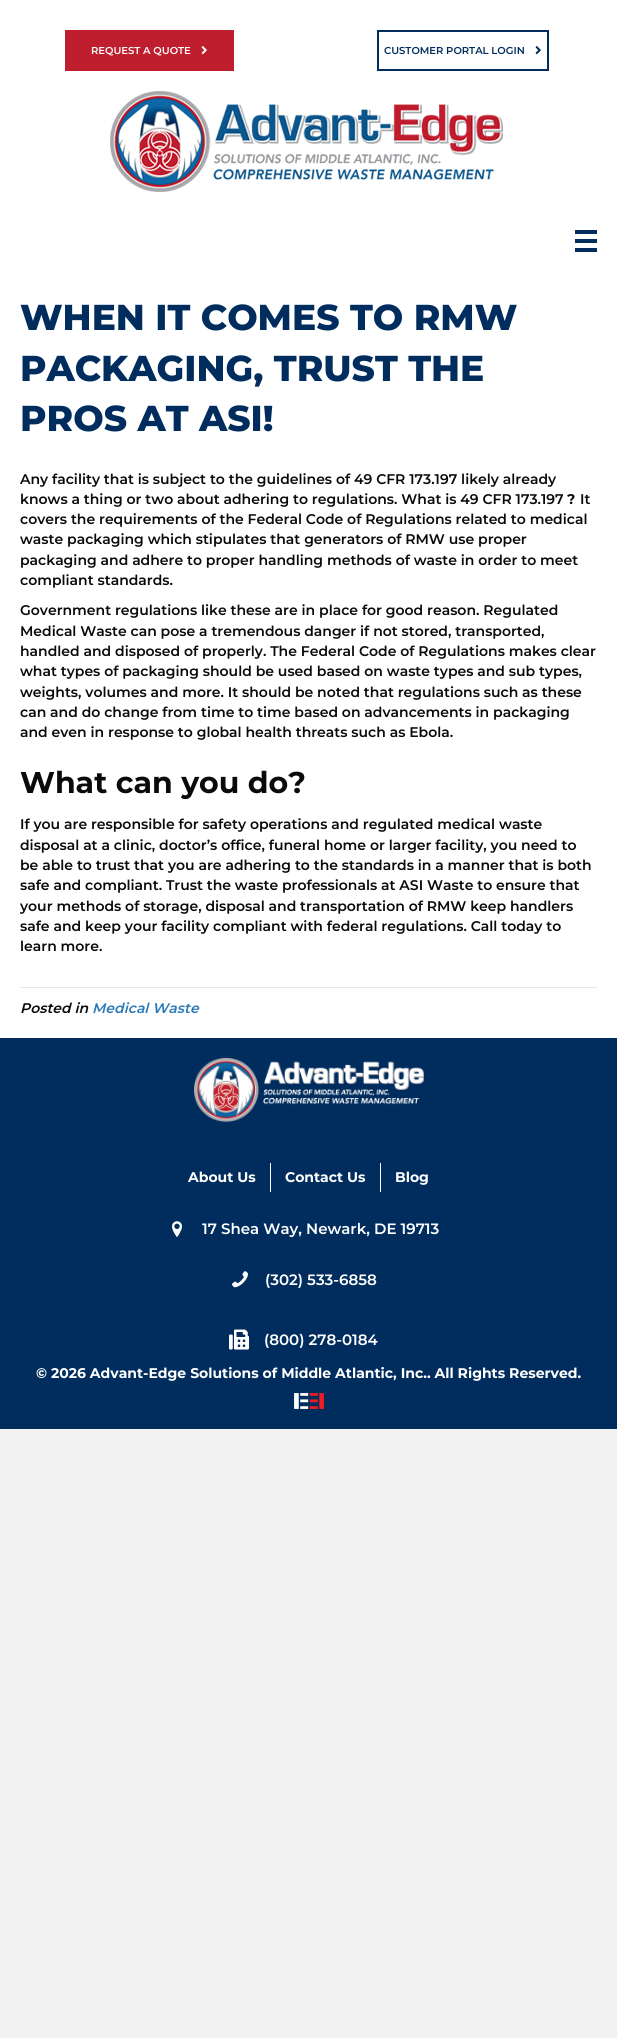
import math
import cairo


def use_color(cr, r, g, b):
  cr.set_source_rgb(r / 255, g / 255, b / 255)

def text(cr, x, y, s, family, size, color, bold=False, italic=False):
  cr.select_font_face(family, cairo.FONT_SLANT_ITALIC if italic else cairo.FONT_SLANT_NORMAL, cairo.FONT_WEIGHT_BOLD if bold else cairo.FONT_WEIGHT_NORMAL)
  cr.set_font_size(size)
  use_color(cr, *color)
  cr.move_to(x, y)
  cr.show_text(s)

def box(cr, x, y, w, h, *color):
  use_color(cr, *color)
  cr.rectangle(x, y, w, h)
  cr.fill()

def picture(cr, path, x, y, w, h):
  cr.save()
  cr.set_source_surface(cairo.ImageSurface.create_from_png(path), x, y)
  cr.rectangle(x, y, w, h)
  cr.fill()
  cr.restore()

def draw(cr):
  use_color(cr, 242, 242, 242)
  cr.paint()
  box(cr, 0, 0, 617, 1038, 255, 255, 255)
  box(cr, 65, 30, 169, 41, 191, 30, 46)
  picture(cr, "img_01.png", 201, 46, 6, 9)
  cr.rectangle(378, 31, 170, 39)
  use_color(cr, 1, 45, 94)
  cr.stroke()
  picture(cr, "img_02.png", 535, 46, 6, 9)
  picture(cr, "img_03.png", 110, 91, 393, 101)
  box(cr, 575, 230, 22, 4, 1, 45, 94)
  box(cr, 575, 239, 22, 4, 1, 45, 94)
  box(cr, 575, 248, 22, 4, 1, 45, 94)
  box(cr, 20, 987, 577, 1, 230, 230, 230)
  box(cr, 0, 1038, 617, 391, 1, 45, 94)
  picture(cr, "img_04.png", 194, 1058, 230, 64)
  box(cr, 270, 1163, 1, 29, 255, 255, 255)
  box(cr, 380, 1163, 1, 29, 255, 255, 255)
  picture(cr, "img_05.png", 172, 1221, 10, 17)
  picture(cr, "img_06.png", 231, 1271, 17, 17)
  picture(cr, "img_07.png", 229, 1329, 20, 21)
  picture(cr, "img_08.png", 294, 1393, 30, 16)
  text(cr, 91, 54, "REQUEST A QUOTE", "Montserrat SemiBold", 10, (255, 255, 255))
  text(cr, 384, 54, "CUSTOMER PORTAL LOGIN", "Montserrat SemiBold", 10, (1, 45, 94))
  text(cr, 20, 330, "WHEN IT COMES TO RMW", "Montserrat ExtraBold", 36, (1, 45, 94))
  text(cr, 20, 381, "PACKAGING, TRUST THE", "Montserrat ExtraBold", 36, (1, 45, 94))
  text(cr, 20, 431, "PROS AT ASI!", "Montserrat ExtraBold", 36, (1, 45, 94))
  text(cr, 20, 484, "Any facility that is subject to the guidelines of 49 CFR 173.197 likely already", "Montserrat SemiBold", 14, (10, 10, 10))
  text(cr, 20, 504, "knows a thing or two about adhering to regulations. What is 49 CFR 173.197", "Montserrat SemiBold", 14, (10, 10, 10))
  text(cr, 567, 504, "?", "Montserrat", 14, (10, 10, 10), bold=True)
  text(cr, 580, 504, "It", "Montserrat SemiBold", 14, (10, 10, 10))
  text(cr, 20, 524, "covers the requirements of the Federal Code of Regulations related to medical", "Montserrat SemiBold", 14, (10, 10, 10))
  text(cr, 20, 544, "waste packaging which stipulates that generators of RMW use proper", "Montserrat SemiBold", 14, (10, 10, 10))
  text(cr, 20, 565, "packaging and adhere to proper handling methods of waste in order to meet", "Montserrat SemiBold", 14, (10, 10, 10))
  text(cr, 20, 585, "compliant standards.", "Montserrat SemiBold", 14, (10, 10, 10))
  text(cr, 20, 615, "Government regulations like these are in place for good reason. Regulated", "Montserrat SemiBold", 14, (10, 10, 10))
  text(cr, 20, 636, "Medical Waste can pose a tremendous danger if not stored, transported,", "Montserrat SemiBold", 14, (10, 10, 10))
  text(cr, 20, 656, "handled and disposed of properly. The Federal Code of Regulations makes clear", "Montserrat SemiBold", 14, (10, 10, 10))
  text(cr, 20, 676, "what types of packaging should be used based on waste types and sub types,", "Montserrat SemiBold", 14, (10, 10, 10))
  text(cr, 20, 697, "weights, volumes and more. It should be noted that regulations such as these", "Montserrat SemiBold", 14, (10, 10, 10))
  text(cr, 20, 717, "can and do change from time to time based on advancements in packaging", "Montserrat SemiBold", 14, (10, 10, 10))
  text(cr, 20, 737, "and even in response to global health threats such as Ebola.", "Montserrat SemiBold", 14, (10, 10, 10))
  text(cr, 20, 793, "What can you do?", "Montserrat", 30, (10, 10, 10), bold=True)
  text(cr, 20, 829, "If you are responsible for safety operations and regulated medical waste", "Montserrat SemiBold", 14, (10, 10, 10))
  text(cr, 20, 850, "disposal at a clinic, doctor’s office, funeral home or larger facility, you need to", "Montserrat SemiBold", 14, (10, 10, 10))
  text(cr, 20, 870, "be able to trust that you are adhering to the standards in a manner that is both", "Montserrat SemiBold", 14, (10, 10, 10))
  text(cr, 20, 890, "safe and compliant. Trust the waste professionals at ASI Waste to ensure that", "Montserrat SemiBold", 14, (10, 10, 10))
  text(cr, 20, 911, "your methods of storage, disposal and transportation of RMW keep handlers", "Montserrat SemiBold", 14, (10, 10, 10))
  text(cr, 20, 931, "safe and keep your facility compliant with federal regulations. Call today to", "Montserrat SemiBold", 14, (10, 10, 10))
  text(cr, 20, 951, "learn more.", "Montserrat SemiBold", 14, (10, 10, 10))
  text(cr, 20, 1013, "Posted in", "Montserrat SemiBold", 14, (10, 10, 10), italic=True)
  text(cr, 92, 1013, "Medical Waste", "Montserrat SemiBold", 14, (43, 123, 185), italic=True)
  text(cr, 188, 1182, "About Us", "Montserrat", 14, (255, 255, 255), bold=True)
  text(cr, 285, 1182, "Contact Us", "Montserrat", 14, (255, 255, 255), bold=True)
  text(cr, 395, 1182, "Blog", "Montserrat", 14, (255, 255, 255), bold=True)
  text(cr, 202, 1234, "17 Shea Way, Newark, DE 19713", "Montserrat SemiBold", 15, (255, 255, 255))
  text(cr, 265, 1285, "(302) 533-6858", "Montserrat SemiBold", 15, (255, 255, 255))
  text(cr, 264, 1345, "(800) 278-0184", "Montserrat SemiBold", 15, (255, 255, 255))
  text(cr, 36, 1378, "© 2026 Advant-Edge Solutions of Middle Atlantic, Inc.. All Rights Reserved.", "Montserrat", 14, (255, 255, 255), bold=True)


surface = cairo.ImageSurface(cairo.FORMAT_RGB24, 617, 2038)
cr = cairo.Context(surface)
options = cairo.FontOptions()
options.set_hint_metrics(cairo.HINT_METRICS_OFF)
options.set_hint_style(cairo.HINT_STYLE_NONE)
cr.set_font_options(options)
cr.set_miter_limit(4)
draw(cr)
surface.write_to_png("out.png")
